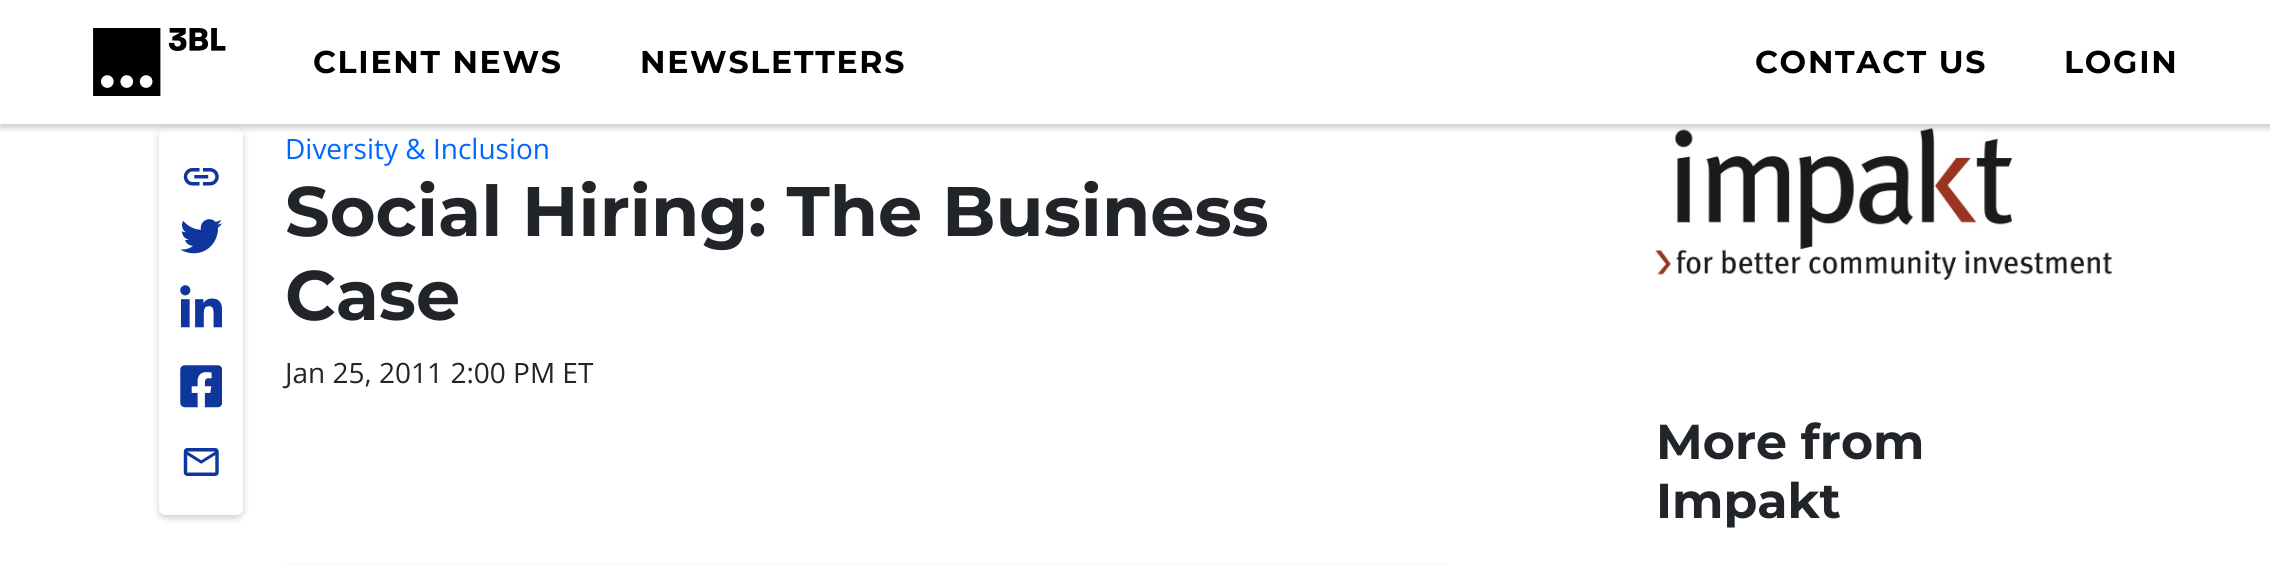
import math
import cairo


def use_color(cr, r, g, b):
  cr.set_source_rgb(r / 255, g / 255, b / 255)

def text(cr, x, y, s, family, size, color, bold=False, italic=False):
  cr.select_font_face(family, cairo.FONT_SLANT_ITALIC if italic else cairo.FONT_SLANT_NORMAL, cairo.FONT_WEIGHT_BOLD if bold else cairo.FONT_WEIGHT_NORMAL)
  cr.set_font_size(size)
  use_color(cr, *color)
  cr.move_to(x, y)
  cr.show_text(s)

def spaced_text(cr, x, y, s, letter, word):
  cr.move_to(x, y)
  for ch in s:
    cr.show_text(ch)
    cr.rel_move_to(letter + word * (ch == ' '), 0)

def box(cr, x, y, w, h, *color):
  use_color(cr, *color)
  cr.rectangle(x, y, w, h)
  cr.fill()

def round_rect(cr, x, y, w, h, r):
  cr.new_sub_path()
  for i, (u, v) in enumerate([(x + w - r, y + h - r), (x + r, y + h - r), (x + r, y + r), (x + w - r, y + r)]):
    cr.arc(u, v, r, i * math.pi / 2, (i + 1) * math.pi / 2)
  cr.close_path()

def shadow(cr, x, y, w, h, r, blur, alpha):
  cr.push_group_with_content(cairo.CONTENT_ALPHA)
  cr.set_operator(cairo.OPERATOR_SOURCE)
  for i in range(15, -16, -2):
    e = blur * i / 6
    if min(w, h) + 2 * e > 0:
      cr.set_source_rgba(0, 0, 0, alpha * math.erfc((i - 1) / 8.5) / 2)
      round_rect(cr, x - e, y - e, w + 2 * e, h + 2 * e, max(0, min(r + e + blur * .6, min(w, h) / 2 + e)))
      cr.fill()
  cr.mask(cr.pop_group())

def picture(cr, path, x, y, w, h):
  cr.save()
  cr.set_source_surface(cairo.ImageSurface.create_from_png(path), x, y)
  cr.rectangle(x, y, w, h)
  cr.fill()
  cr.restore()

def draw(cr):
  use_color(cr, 255, 255, 255)
  cr.paint()
  picture(cr, "img_07.png", 1655, 127, 458, 153)
  cr.save()
  cr.rectangle(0, 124, 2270, 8)
  cr.clip()
  use_color(cr, 0, 0, 0)
  shadow(cr, 0, 4, 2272, 124, 0, 3.5, 0.2)
  cr.restore()
  picture(cr, "img_01.png", 93, 28, 133, 68)
  cr.save()
  cr.set_fill_rule(cairo.FILL_RULE_EVEN_ODD)
  cr.new_path()
  cr.move_to(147, 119)
  cr.line_to(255, 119)
  cr.line_to(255, 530)
  cr.line_to(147, 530)
  cr.close_path()
  cr.move_to(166, 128)
  cr.line_to(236, 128)
  cr.curve_to(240, 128, 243, 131, 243, 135)
  cr.line_to(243, 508)
  cr.curve_to(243, 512, 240, 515, 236, 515)
  cr.line_to(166, 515)
  cr.curve_to(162, 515, 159, 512, 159, 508)
  cr.line_to(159, 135)
  cr.curve_to(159, 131, 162, 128, 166, 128)
  cr.close_path()
  cr.clip()
  use_color(cr, 0, 0, 0)
  shadow(cr, 159, 131, 84, 387, 7, 3.5, 0.2)
  cr.restore()
  picture(cr, "img_02.png", 183, 168, 36, 18)
  picture(cr, "img_03.png", 180, 219, 42, 35)
  picture(cr, "img_04.png", 180, 285, 42, 43)
  picture(cr, "img_05.png", 180, 365, 42, 43)
  picture(cr, "img_06.png", 183, 448, 36, 28)
  box(cr, 286, 562, 1161, 3, 250, 250, 250)
  cr.select_font_face("Montserrat", cairo.FONT_SLANT_NORMAL, cairo.FONT_WEIGHT_BOLD)
  cr.set_font_size(31.5)
  use_color(cr, 0, 0, 0)
  spaced_text(cr, 313, 73, "CLIENT NEWS", 1.75, 0)
  spaced_text(cr, 640, 73, "NEWSLETTERS", 1.75, 0)
  spaced_text(cr, 1755, 73, "CONTACT US", 1.75, 0)
  spaced_text(cr, 2064, 73, "LOGIN", 1.75, 0)
  text(cr, 285, 159, "Diversity & Inclusion", "Open Sans", 28, (0, 102, 255))
  text(cr, 285, 236, "Social Hiring: The Business", "Montserrat", 70, (33, 37, 41), bold=True)
  text(cr, 285, 320, "Case", "Montserrat", 70, (33, 37, 41), bold=True)
  text(cr, 285, 383, "Jan 25, 2011 2:00 PM ET", "Open Sans", 28, (33, 37, 41))
  text(cr, 1656, 459, "More from", "Montserrat", 49, (33, 37, 41), bold=True)
  text(cr, 1656, 518, "Impakt", "Montserrat", 49, (33, 37, 41), bold=True)


surface = cairo.ImageSurface(cairo.FORMAT_RGB24, 2270, 565)
cr = cairo.Context(surface)
options = cairo.FontOptions()
options.set_hint_metrics(cairo.HINT_METRICS_OFF)
options.set_hint_style(cairo.HINT_STYLE_NONE)
cr.set_font_options(options)
cr.set_miter_limit(4)
draw(cr)
surface.write_to_png("out.png")
